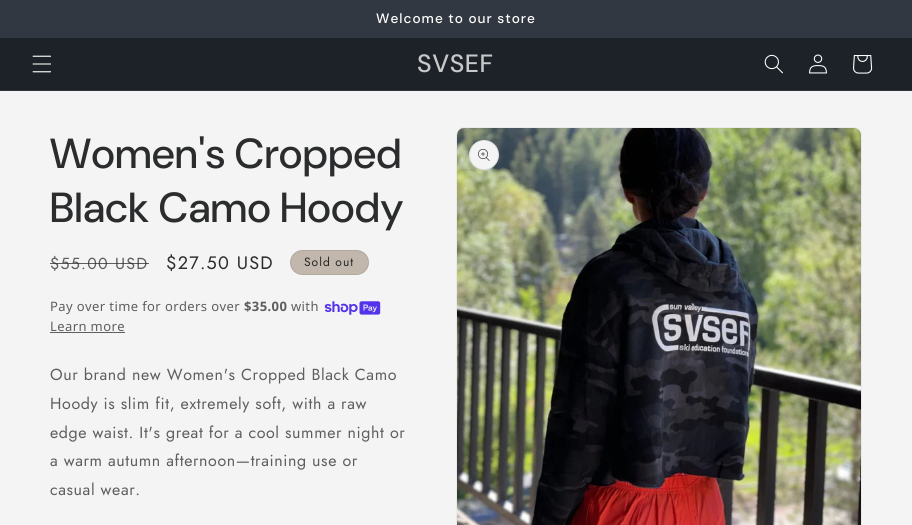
import math
import cairo


def use_color(cr, r, g, b):
  cr.set_source_rgb(r / 255, g / 255, b / 255)

def spaced_text(cr, x, y, s, letter, word):
  cr.move_to(x, y)
  for ch in s:
    cr.show_text(ch)
    cr.rel_move_to(letter + word * (ch == ' '), 0)

def box(cr, x, y, w, h, *color):
  use_color(cr, *color)
  cr.rectangle(x, y, w, h)
  cr.fill()

def round_rect(cr, x, y, w, h, r):
  cr.new_sub_path()
  for i, (u, v) in enumerate([(x + w - r, y + h - r), (x + r, y + h - r), (x + r, y + r), (x + w - r, y + r)]):
    cr.arc(u, v, r, i * math.pi / 2, (i + 1) * math.pi / 2)
  cr.close_path()

def picture(cr, path, x, y, w, h):
  cr.save()
  cr.set_source_surface(cairo.ImageSurface.create_from_png(path), x, y)
  cr.rectangle(x, y, w, h)
  cr.fill()
  cr.restore()

def draw(cr):
  use_color(cr, 244, 244, 244)
  cr.paint()
  box(cr, 0, 0, 912, 38, 50, 56, 65)
  box(cr, 0, 38, 912, 52, 28, 34, 40)
  box(cr, 0, 90, 912, 1, 46, 52, 57)
  picture(cr, "img_01.png", 32, 55, 20, 18)
  picture(cr, "img_02.png", 764, 54, 19, 20)
  picture(cr, "img_03.png", 809, 54, 18, 20)
  picture(cr, "img_04.png", 853, 55, 20, 19)
  use_color(cr, 194, 183, 172)
  round_rect(cr, 290, 250, 79, 25, 12.5)
  cr.fill()
  round_rect(cr, 290.5, 250.5, 78, 24, 12)
  cr.set_source_rgba(0.149, 0.149, 0.149, 0.1)
  cr.set_line_width(1)
  cr.stroke()
  picture(cr, "img_05.png", 324, 301, 57, 14)
  box(cr, 50, 332, 75, 1, 93, 94, 95)
  round_rect(cr, 456.5, 127.5, 405, 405, 7.5)
  use_color(cr, 234, 234, 234)
  cr.stroke()
  picture(cr, "img_06.png", 457, 128, 404, 397)
  use_color(cr, 244, 244, 244)
  cr.arc(484, 155, 15, 0, 2 * math.pi)
  cr.fill()
  cr.arc(484, 155, 14.5, 0, 2 * math.pi)
  cr.set_source_rgba(0.169, 0.173, 0.176, 0.1)
  cr.stroke()
  picture(cr, "img_07.png", 478, 149, 12, 12)
  cr.select_font_face("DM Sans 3 Medium")
  cr.set_font_size(13.6)
  use_color(cr, 255, 255, 255)
  spaced_text(cr, 376, 23, "Welcome to our store", 1, 0)
  cr.select_font_face("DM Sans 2 Medium")
  cr.set_font_size(25)
  use_color(cr, 198, 200, 201)
  spaced_text(cr, 417, 72, "SVSEF", 0.6, 0)
  cr.select_font_face("DM Sans Medium")
  cr.set_font_size(42)
  use_color(cr, 43, 44, 45)
  spaced_text(cr, 50, 168, "Women's Cropped", 0.6, 0)
  spaced_text(cr, 50, 222, "Black Camo Hoody", 0.6, 0)
  cr.select_font_face("Jost")
  cr.set_font_size(16)
  use_color(cr, 93, 94, 95)
  spaced_text(cr, 50, 269, "$55.00 USD", 1.25, 0)
  cr.set_source_rgba(0.169, 0.173, 0.176, 0.75)
  cr.rectangle(50, 263, 99, 1)
  cr.fill()
  cr.set_font_size(18)
  use_color(cr, 43, 44, 45)
  spaced_text(cr, 166, 269, "$27.50 USD", 1.25, 0)
  cr.set_font_size(12)
  use_color(cr, 38, 38, 38)
  spaced_text(cr, 304, 266, "Sold out", 1, 0)
  cr.select_font_face("Noto Sans")
  cr.set_font_size(13)
  use_color(cr, 93, 94, 95)
  spaced_text(cr, 50, 311, "Pay over time for orders over", 0.4, 0)
  cr.select_font_face("Noto Sans", cairo.FONT_SLANT_NORMAL, cairo.FONT_WEIGHT_BOLD)
  spaced_text(cr, 244, 311, "$35.00", 0.4, 0)
  cr.select_font_face("Noto Sans")
  spaced_text(cr, 291, 311, "with", 0.4, 0)
  spaced_text(cr, 50, 331, "Learn more", 0.4, 0)
  cr.select_font_face("Jost")
  cr.set_font_size(16)
  spaced_text(cr, 50, 380, "Our brand new Women's Cropped Black Camo", 0.6, 0)
  spaced_text(cr, 50, 409, "Hoody is slim fit, extremely soft, with a raw", 0.6, 0)
  spaced_text(cr, 50, 438, "edge waist. It's great for a cool summer night or", 0.6, 0)
  spaced_text(cr, 50, 466, "a warm autumn afternoon—training use or", 0.6, 0)
  spaced_text(cr, 50, 495, "casual wear.", 0.6, 0)


surface = cairo.ImageSurface(cairo.FORMAT_RGB24, 912, 525)
cr = cairo.Context(surface)
options = cairo.FontOptions()
options.set_hint_metrics(cairo.HINT_METRICS_OFF)
options.set_hint_style(cairo.HINT_STYLE_NONE)
cr.set_font_options(options)
cr.set_miter_limit(4)
draw(cr)
surface.write_to_png("out.png")
